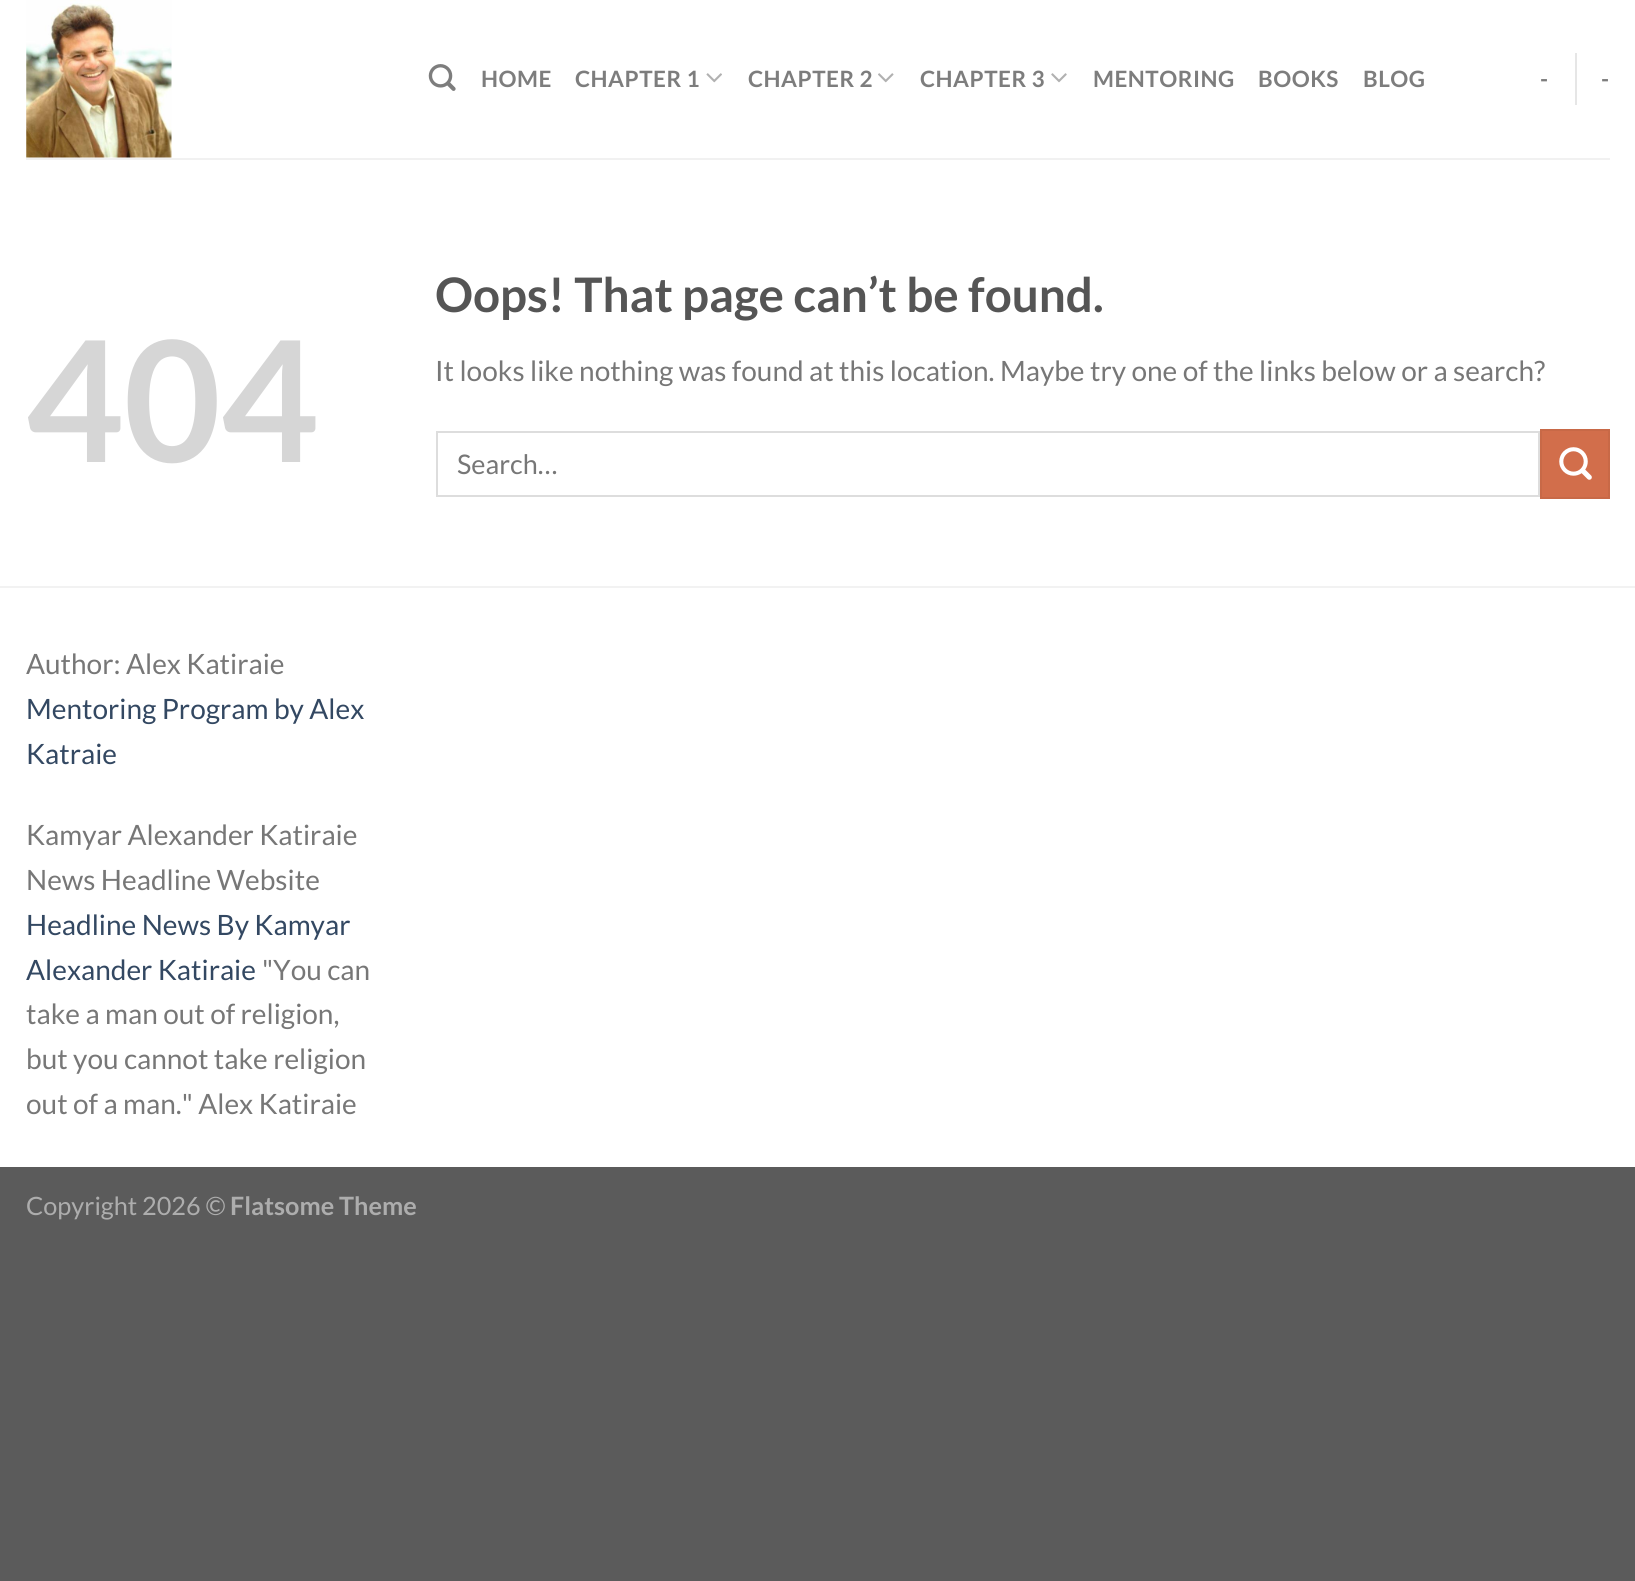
import math
import cairo


def use_color(cr, r, g, b):
  cr.set_source_rgb(r / 255, g / 255, b / 255)

def text(cr, x, y, s, family, size, color, bold=False, italic=False):
  cr.select_font_face(family, cairo.FONT_SLANT_ITALIC if italic else cairo.FONT_SLANT_NORMAL, cairo.FONT_WEIGHT_BOLD if bold else cairo.FONT_WEIGHT_NORMAL)
  cr.set_font_size(size)
  use_color(cr, *color)
  cr.move_to(x, y)
  cr.show_text(s)

def spaced_text(cr, x, y, s, letter, word):
  cr.move_to(x, y)
  for ch in s:
    cr.show_text(ch)
    cr.rel_move_to(letter + word * (ch == ' '), 0)

def box(cr, x, y, w, h, *color):
  use_color(cr, *color)
  cr.rectangle(x, y, w, h)
  cr.fill()

def picture(cr, path, x, y, w, h):
  cr.save()
  cr.set_source_surface(cairo.ImageSurface.create_from_png(path), x, y)
  cr.rectangle(x, y, w, h)
  cr.fill()
  cr.restore()

def draw(cr):
  use_color(cr, 91, 91, 91)
  cr.paint()
  box(cr, 0, 0, 1635, 1167, 255, 255, 255)
  picture(cr, "img_01.png", 26, 0, 146, 158)
  picture(cr, "img_02.png", 428, 64, 28, 27)
  picture(cr, "img_03.png", 706, 73, 16, 10)
  picture(cr, "img_04.png", 878, 73, 16, 10)
  picture(cr, "img_05.png", 1051, 73, 16, 10)
  box(cr, 1575, 53, 2, 52, 230, 230, 230)
  box(cr, 26, 158, 1584, 2, 241, 241, 241)
  cr.rectangle(437, 432, 1102, 64)
  use_color(cr, 221, 221, 221)
  cr.stroke()
  use_color(cr, 210, 110, 75)
  cr.rectangle(1541, 430, 68, 68)
  cr.fill_preserve()
  use_color(cr, 200, 105, 71)
  cr.stroke()
  picture(cr, "img_06.png", 1559, 447, 33, 33)
  box(cr, 0, 586, 1635, 2, 242, 242, 242)
  cr.select_font_face("Lato", cairo.FONT_SLANT_NORMAL, cairo.FONT_WEIGHT_BOLD)
  cr.set_font_size(22.5)
  use_color(cr, 125, 125, 125)
  spaced_text(cr, 481, 87, "HOME", 0.5, 0)
  spaced_text(cr, 575, 87, "CHAPTER 1", 0.5, 0)
  spaced_text(cr, 748, 87, "CHAPTER 2", 0.5, 0)
  spaced_text(cr, 920, 87, "CHAPTER 3", 0.5, 0)
  spaced_text(cr, 1093, 87, "MENTORING", 0.5, 0)
  spaced_text(cr, 1258, 87, "BOOKS", 0.5, 0)
  spaced_text(cr, 1363, 87, "BLOG", 0.5, 0)
  spaced_text(cr, 1540, 87, "-", 0.5, 0)
  spaced_text(cr, 1601, 87, "-", 0.5, 0)
  text(cr, 26, 462, "404", "Lato", 168, (214, 214, 214), bold=True)
  text(cr, 435, 312, "Oops! That page can’t be found.", "Lato", 47.6, (85, 85, 85), bold=True)
  text(cr, 435, 381, "It looks like nothing was found at this location. Maybe try one of the links below or a search?", "Lato", 28, (119, 119, 119))
  text(cr, 457, 474, "Search…", "Lato", 27, (119, 119, 119))
  text(cr, 26, 674, "Author: Alex Katiraie", "Lato", 28, (119, 119, 119))
  text(cr, 26, 719, "Mentoring Program by Alex", "Lato", 28, (51, 72, 98))
  text(cr, 26, 764, "Katraie", "Lato", 28, (51, 72, 98))
  text(cr, 26, 845, "Kamyar Alexander Katiraie", "Lato", 28, (119, 119, 119))
  text(cr, 26, 890, "News Headline Website", "Lato", 28, (119, 119, 119))
  text(cr, 26, 935, "Headline News By Kamyar", "Lato", 28, (51, 72, 98))
  text(cr, 26, 980, "Alexander Katiraie", "Lato", 28, (51, 72, 98))
  text(cr, 262, 980, "\"You can", "Lato", 28, (119, 119, 119))
  text(cr, 26, 1024, "take a man out of religion,", "Lato", 28, (119, 119, 119))
  text(cr, 26, 1069, "but you cannot take religion", "Lato", 28, (119, 119, 119))
  text(cr, 26, 1114, "out of a man.\" Alex Katiraie", "Lato", 28, (119, 119, 119))
  text(cr, 26, 1215, "Copyright 2026 ©", "Lato", 25.25, (173, 173, 173))
  text(cr, 230, 1215, "Flatsome Theme", "Lato", 25.25, (173, 173, 173), bold=True)


surface = cairo.ImageSurface(cairo.FORMAT_RGB24, 1635, 1581)
cr = cairo.Context(surface)
options = cairo.FontOptions()
options.set_hint_metrics(cairo.HINT_METRICS_OFF)
options.set_hint_style(cairo.HINT_STYLE_NONE)
cr.set_font_options(options)
cr.set_miter_limit(4)
draw(cr)
surface.write_to_png("out.png")
